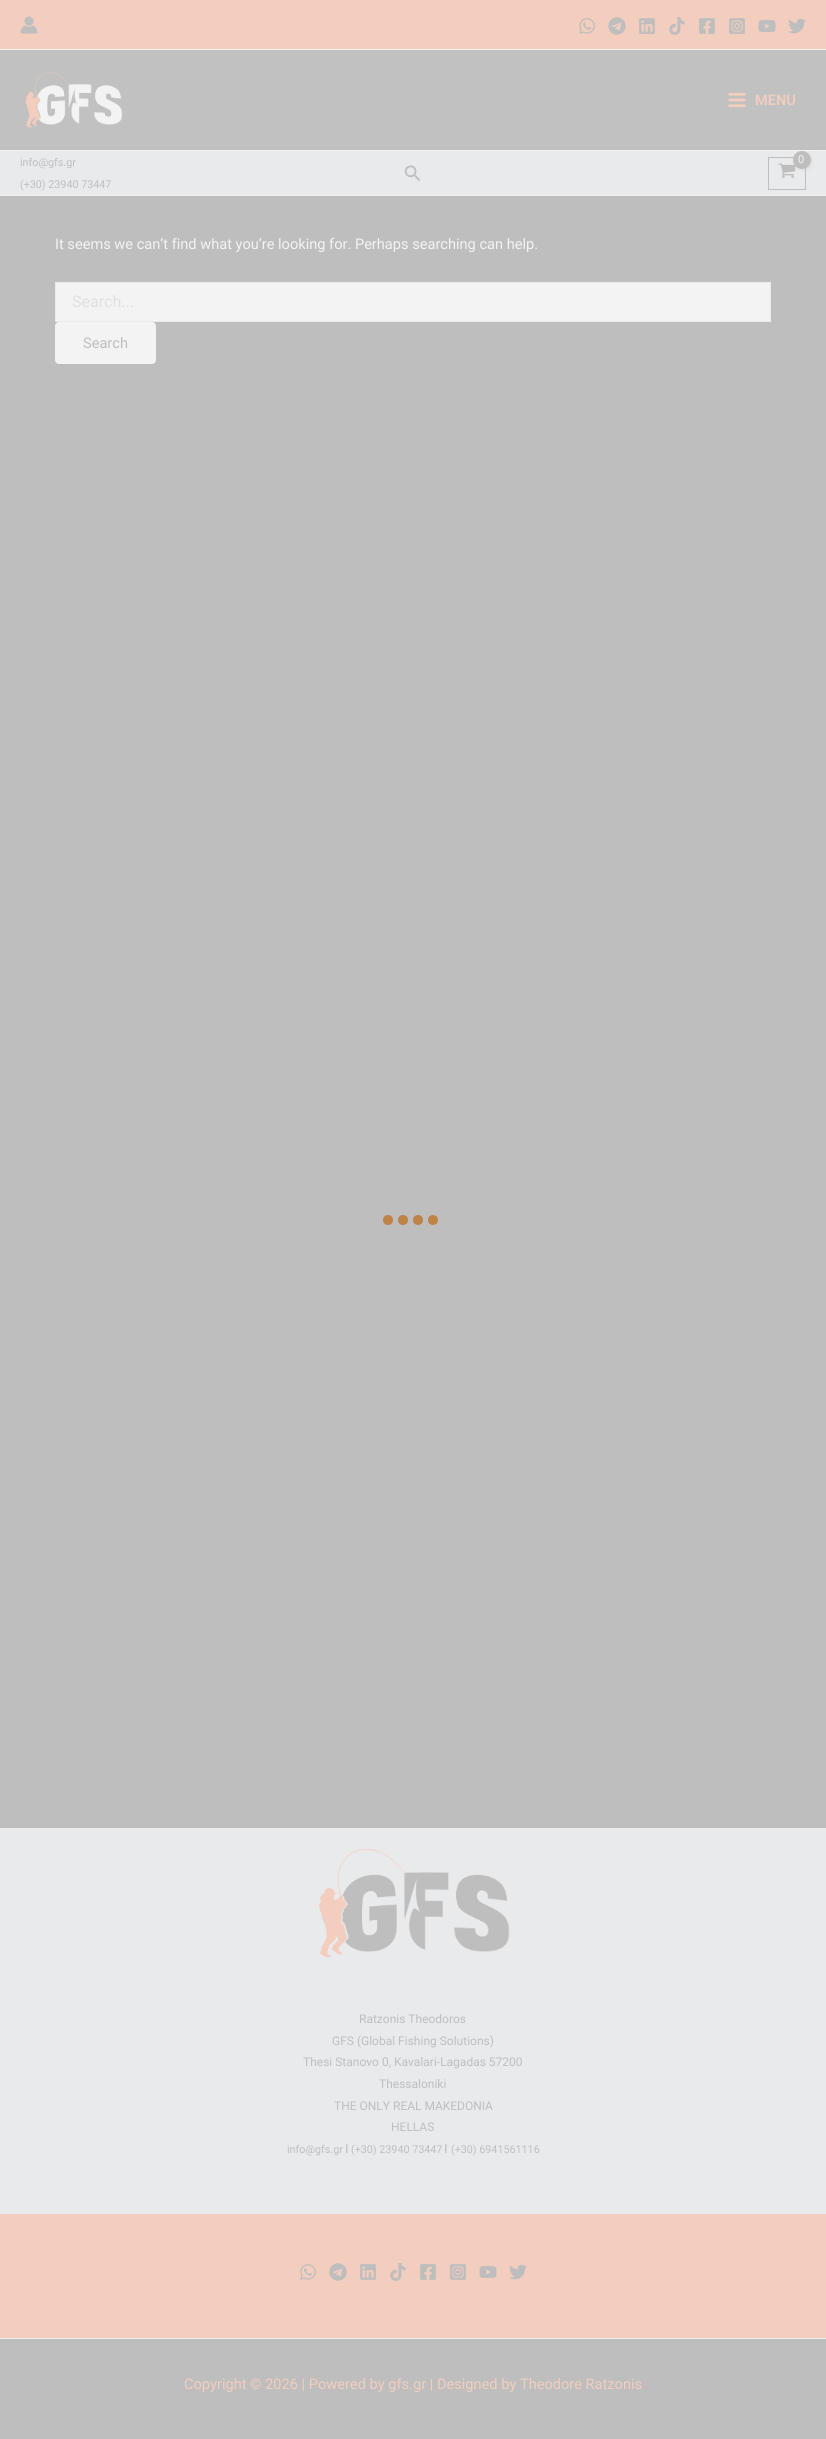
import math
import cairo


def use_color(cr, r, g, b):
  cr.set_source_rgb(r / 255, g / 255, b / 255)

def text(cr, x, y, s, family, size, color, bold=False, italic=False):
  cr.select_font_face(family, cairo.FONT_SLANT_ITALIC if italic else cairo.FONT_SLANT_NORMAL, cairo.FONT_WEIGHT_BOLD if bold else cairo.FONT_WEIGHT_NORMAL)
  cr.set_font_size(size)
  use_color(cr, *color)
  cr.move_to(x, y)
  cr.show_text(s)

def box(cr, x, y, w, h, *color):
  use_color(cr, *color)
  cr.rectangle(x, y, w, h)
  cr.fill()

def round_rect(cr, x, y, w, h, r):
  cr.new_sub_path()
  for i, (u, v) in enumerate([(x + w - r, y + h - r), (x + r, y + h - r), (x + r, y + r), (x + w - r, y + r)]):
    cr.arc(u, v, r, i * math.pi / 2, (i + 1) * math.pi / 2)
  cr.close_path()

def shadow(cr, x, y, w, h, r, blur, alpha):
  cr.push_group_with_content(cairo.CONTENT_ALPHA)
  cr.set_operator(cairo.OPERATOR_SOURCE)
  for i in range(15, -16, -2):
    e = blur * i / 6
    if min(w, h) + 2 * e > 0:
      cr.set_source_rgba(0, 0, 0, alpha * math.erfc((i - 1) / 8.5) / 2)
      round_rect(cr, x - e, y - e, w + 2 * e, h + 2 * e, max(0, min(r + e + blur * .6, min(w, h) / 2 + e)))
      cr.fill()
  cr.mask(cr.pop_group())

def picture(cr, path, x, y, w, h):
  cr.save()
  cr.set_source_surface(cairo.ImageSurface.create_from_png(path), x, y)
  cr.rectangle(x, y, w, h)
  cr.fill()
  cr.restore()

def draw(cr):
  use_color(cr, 190, 190, 190)
  cr.paint()
  box(cr, 0, 0, 826, 49, 243, 205, 190)
  box(cr, 0, 49, 826, 1, 239, 239, 239)
  picture(cr, "img_01.png", 20, 16, 18, 18)
  picture(cr, "img_02.png", 579, 18, 16, 16)
  picture(cr, "img_03.png", 608, 17, 18, 18)
  picture(cr, "img_04.png", 639, 18, 16, 16)
  picture(cr, "img_05.png", 669, 17, 16, 18)
  picture(cr, "img_06.png", 699, 18, 16, 16)
  picture(cr, "img_07.png", 729, 18, 16, 16)
  picture(cr, "img_08.png", 758, 20, 18, 12)
  picture(cr, "img_09.png", 788, 18, 18, 16)
  box(cr, 0, 151, 826, 44, 233, 234, 236)
  cr.rectangle(768.5, 157.5, 37, 32)
  use_color(cr, 190, 190, 190)
  cr.set_line_width(1)
  cr.stroke()
  picture(cr, "img_13.png", 778, 163, 18, 15)
  use_color(cr, 190, 190, 190)
  shadow(cr, 794, 152, 18, 18, 9, 1.5, 0.3)
  box(cr, 0, 50, 826, 100, 193, 193, 193)
  box(cr, 0, 150, 826, 1, 243, 243, 243)
  picture(cr, "img_10.png", 25, 72, 98, 56)
  picture(cr, "img_11.png", 728, 92, 18, 16)
  box(cr, 0, 195, 826, 1, 239, 239, 239)
  picture(cr, "img_12.png", 404, 165, 16, 17)
  use_color(cr, 190, 190, 190)
  cr.arc(802, 160, 9, 0, 2 * math.pi)
  cr.fill()
  use_color(cr, 243, 243, 243)
  cr.rectangle(55.5, 282.5, 715, 39)
  cr.fill_preserve()
  use_color(cr, 233, 234, 236)
  cr.stroke()
  use_color(cr, 243, 243, 243)
  round_rect(cr, 55, 322, 101, 42, 4)
  cr.fill()
  box(cr, 0, 1828, 826, 386, 233, 234, 236)
  picture(cr, "img_14.png", 318, 1848, 192, 110)
  box(cr, 0, 2214, 826, 124, 243, 205, 190)
  picture(cr, "img_02.png", 300, 2264, 16, 16)
  picture(cr, "img_03.png", 329, 2263, 18, 18)
  picture(cr, "img_04.png", 360, 2264, 16, 16)
  picture(cr, "img_05.png", 390, 2263, 16, 18)
  picture(cr, "img_06.png", 420, 2264, 16, 16)
  picture(cr, "img_07.png", 450, 2264, 16, 16)
  picture(cr, "img_08.png", 479, 2266, 18, 12)
  picture(cr, "img_09.png", 509, 2264, 18, 16)
  box(cr, 0, 2338, 826, 1, 239, 239, 239)
  use_color(cr, 189, 132, 70)
  cr.arc(388, 1220, 5, 0, 2 * math.pi)
  cr.fill()
  cr.arc(403, 1220, 5, 0, 2 * math.pi)
  cr.fill()
  cr.arc(418, 1220, 5, 0, 2 * math.pi)
  cr.fill()
  cr.arc(433, 1220, 5, 0, 2 * math.pi)
  cr.fill()
  text(cr, 755, 105, "MENU", "Roboto SemiBold", 14.6, (243, 205, 190))
  text(cr, 20, 166, "info@gfs.gr", "Roboto", 10.75, (190, 190, 190))
  text(cr, 20, 188, "(+30) 23940 73447", "Roboto", 10.75, (190, 190, 190))
  text(cr, 798, 163, "0", "Roboto", 11, (243, 243, 243))
  text(cr, 55, 249, "It seems we can’t find what you’re looking for. Perhaps searching can help.", "Roboto", 14.6, (243, 243, 243))
  text(cr, 72, 307, "Search...", "Roboto", 16, (222, 224, 226))
  text(cr, 83, 348, "Search", "Roboto", 14.6, (190, 190, 190))
  text(cr, 359, 2023, "Ratzonis Theodoros", "Roboto", 12, (190, 190, 190))
  text(cr, 332, 2045, "GFS (Global Fishing Solutions)", "Roboto", 12, (190, 190, 190))
  text(cr, 303, 2066, "Thesi Stanovo 0, Kavalari-Lagadas 57200", "Roboto", 12, (190, 190, 190))
  text(cr, 379, 2088, "Thessaloniki", "Roboto", 12, (190, 190, 190))
  text(cr, 334, 2110, "THE ONLY REAL MAKEDONIA", "Roboto", 12, (190, 190, 190))
  text(cr, 391, 2131, "HELLAS", "Roboto", 12, (190, 190, 190))
  text(cr, 287, 2153, "info@gfs.gr", "Roboto", 10.75, (190, 190, 190))
  text(cr, 345, 2153, "I", "Roboto", 13, (190, 190, 190))
  text(cr, 351, 2153, "(+30) 23940 73447", "Roboto", 10.75, (190, 190, 190))
  text(cr, 444, 2153, "I", "Roboto", 13, (190, 190, 190))
  text(cr, 451, 2153, "(+30) 6941561116", "Roboto", 10.75, (190, 190, 190))
  text(cr, 184, 2389, "Copyright © 2026 | Powered by gfs.gr | Designed by Theodore Ratzonis", "Roboto", 14.6, (243, 205, 190))


surface = cairo.ImageSurface(cairo.FORMAT_RGB24, 826, 2439)
cr = cairo.Context(surface)
options = cairo.FontOptions()
options.set_hint_metrics(cairo.HINT_METRICS_OFF)
options.set_hint_style(cairo.HINT_STYLE_NONE)
cr.set_font_options(options)
cr.set_miter_limit(4)
draw(cr)
surface.write_to_png("out.png")
